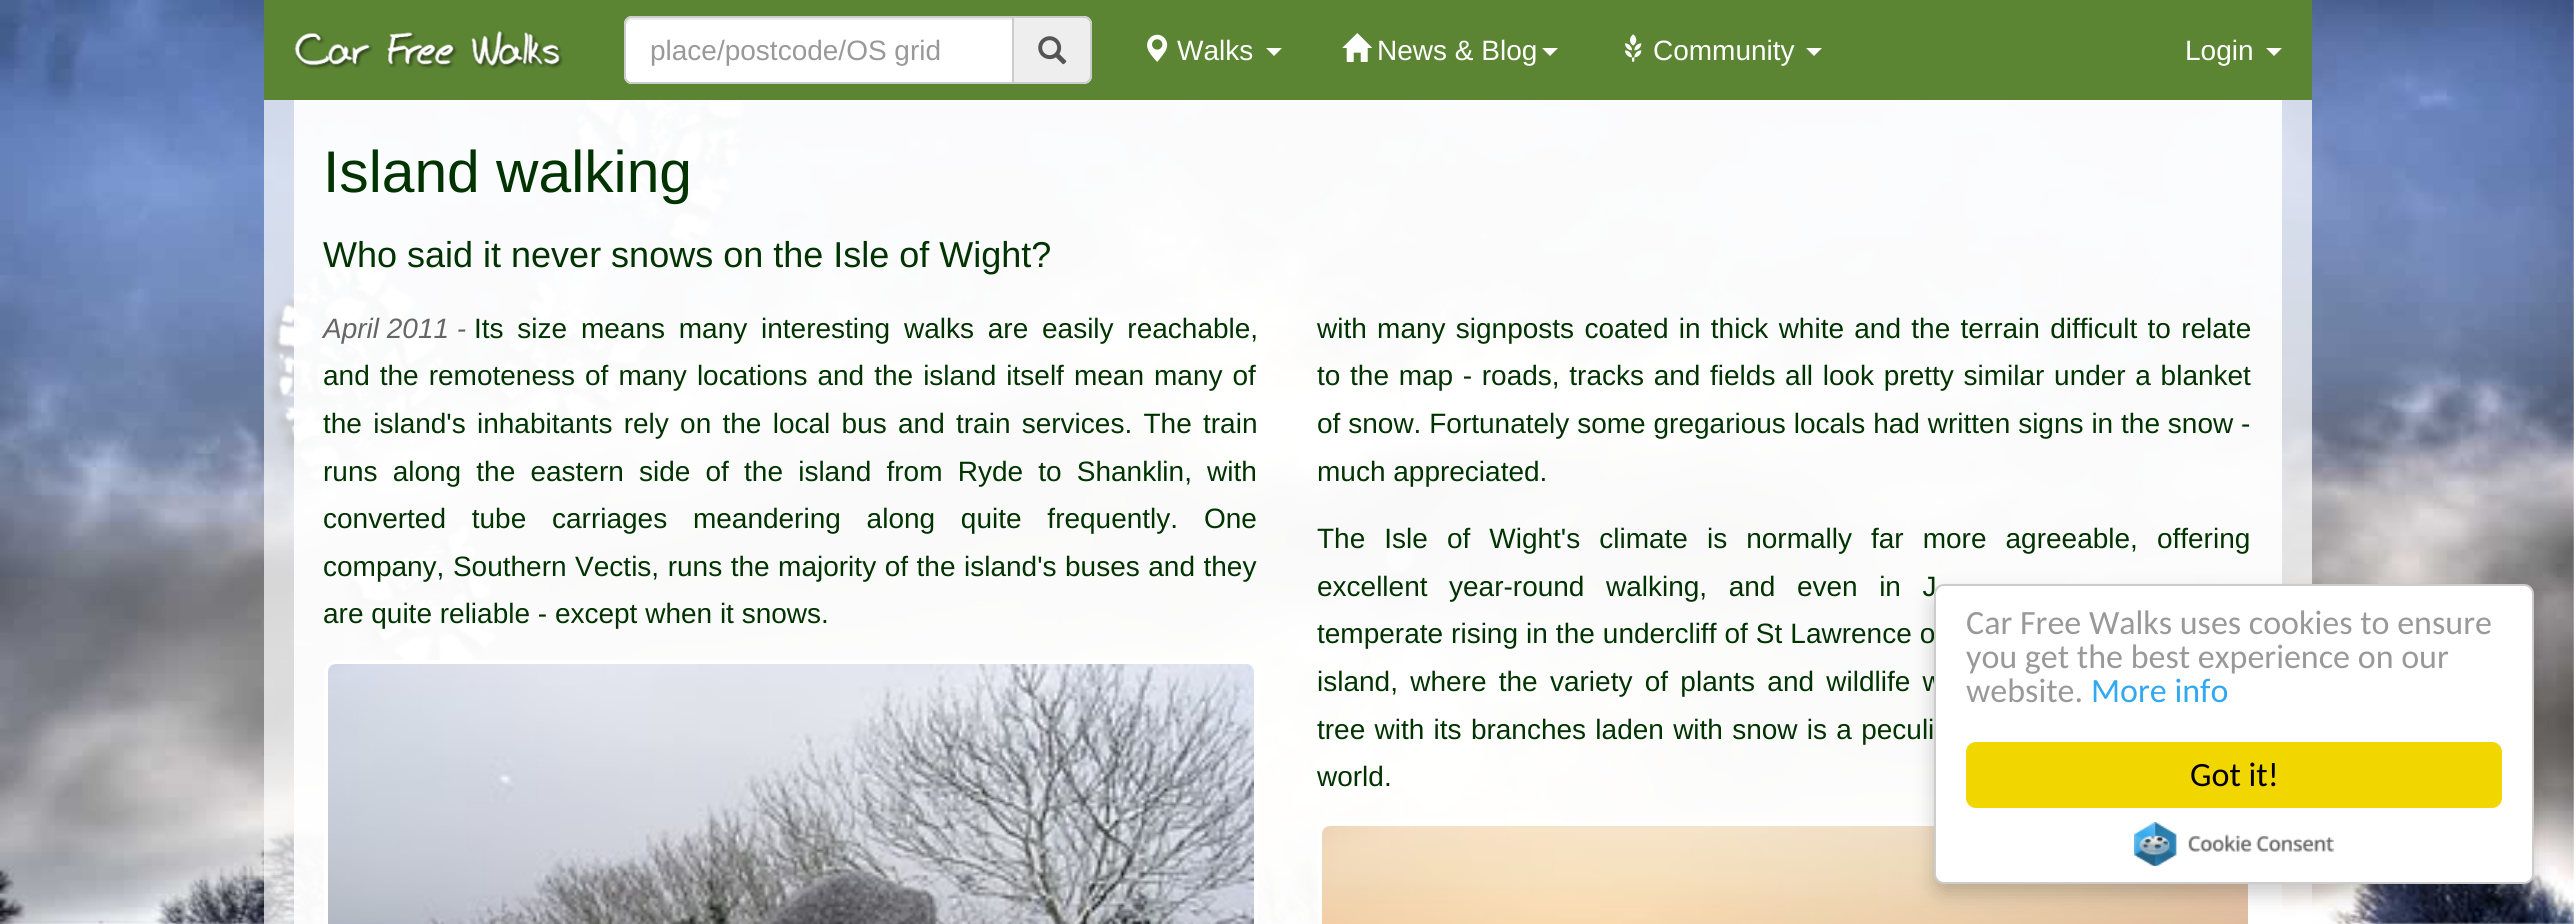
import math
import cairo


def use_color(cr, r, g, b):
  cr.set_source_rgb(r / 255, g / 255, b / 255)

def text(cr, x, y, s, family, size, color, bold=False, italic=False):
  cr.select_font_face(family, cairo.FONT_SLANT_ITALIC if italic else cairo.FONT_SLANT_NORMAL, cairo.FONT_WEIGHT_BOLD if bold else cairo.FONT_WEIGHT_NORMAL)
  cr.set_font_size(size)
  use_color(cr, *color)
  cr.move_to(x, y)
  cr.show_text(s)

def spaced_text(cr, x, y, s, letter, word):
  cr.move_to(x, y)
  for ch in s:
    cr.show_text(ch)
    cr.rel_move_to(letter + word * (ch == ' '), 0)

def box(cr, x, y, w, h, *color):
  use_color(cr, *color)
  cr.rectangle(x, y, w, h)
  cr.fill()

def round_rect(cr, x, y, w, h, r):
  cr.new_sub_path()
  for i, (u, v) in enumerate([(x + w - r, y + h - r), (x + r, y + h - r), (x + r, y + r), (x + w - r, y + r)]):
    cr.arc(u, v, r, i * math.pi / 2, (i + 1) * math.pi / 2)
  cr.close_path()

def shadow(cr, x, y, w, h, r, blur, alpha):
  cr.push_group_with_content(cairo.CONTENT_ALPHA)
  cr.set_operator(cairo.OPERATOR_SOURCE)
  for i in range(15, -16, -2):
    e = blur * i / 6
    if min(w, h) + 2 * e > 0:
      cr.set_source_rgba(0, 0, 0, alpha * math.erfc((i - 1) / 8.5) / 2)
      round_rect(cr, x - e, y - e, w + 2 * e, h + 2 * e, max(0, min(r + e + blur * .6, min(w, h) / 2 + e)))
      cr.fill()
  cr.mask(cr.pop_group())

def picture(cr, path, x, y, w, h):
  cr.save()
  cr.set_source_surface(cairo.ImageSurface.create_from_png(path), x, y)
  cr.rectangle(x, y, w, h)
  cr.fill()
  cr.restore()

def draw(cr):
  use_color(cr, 255, 255, 255)
  cr.paint()
  picture(cr, "img_01.png", 0, 0, 2574, 924)
  box(cr, 264, 0, 2048, 100, 91, 132, 51)
  picture(cr, "img_02.png", 294, 31, 269, 38)
  use_color(cr, 255, 255, 255)
  cr.new_path()
  cr.move_to(632, 16)
  cr.line_to(1014, 16)
  cr.line_to(1014, 84)
  cr.line_to(632, 84)
  cr.curve_to(627.5, 84, 624, 80.5, 624, 76)
  cr.line_to(624, 24)
  cr.curve_to(624, 19.5, 627.5, 16, 632, 16)
  cr.close_path()
  cr.fill()
  use_color(cr, 236, 236, 236)
  cr.new_path()
  cr.move_to(632, 20)
  cr.line_to(1012, 20)
  cr.line_to(1012, 18)
  cr.line_to(632, 18)
  cr.curve_to(627, 18, 626, 22, 626, 26)
  cr.curve_to(626, 23, 629, 20, 632, 20)
  cr.close_path()
  cr.fill()
  cr.new_path()
  cr.move_to(632, 17)
  cr.line_to(1013, 17)
  cr.line_to(1013, 83)
  cr.line_to(632, 83)
  cr.curve_to(628, 83, 625, 80, 625, 76)
  cr.line_to(625, 24)
  cr.curve_to(625, 20, 628, 17, 632, 17)
  cr.close_path()
  use_color(cr, 204, 204, 204)
  cr.stroke()
  use_color(cr, 238, 238, 238)
  cr.new_path()
  cr.move_to(1014, 16)
  cr.line_to(1084, 16)
  cr.curve_to(1088.5, 16, 1092, 19.5, 1092, 24)
  cr.line_to(1092, 76)
  cr.curve_to(1092, 80.5, 1088.5, 84, 1084, 84)
  cr.line_to(1014, 84)
  cr.close_path()
  cr.fill()
  use_color(cr, 204, 204, 204)
  cr.set_fill_rule(cairo.FILL_RULE_EVEN_ODD)
  cr.new_path()
  cr.move_to(1014, 16)
  cr.line_to(1084, 16)
  cr.curve_to(1088, 16, 1092, 20, 1092, 24)
  cr.line_to(1092, 76)
  cr.curve_to(1092, 80, 1088, 84, 1084, 84)
  cr.line_to(1014, 84)
  cr.close_path()
  cr.move_to(1014, 18)
  cr.line_to(1084, 18)
  cr.curve_to(1087, 18, 1090, 21, 1090, 24)
  cr.line_to(1090, 76)
  cr.curve_to(1090, 79, 1087, 82, 1084, 82)
  cr.line_to(1014, 82)
  cr.close_path()
  cr.fill()
  picture(cr, "img_03.png", 1038, 36, 29, 29)
  picture(cr, "img_04.png", 1147, 34, 21, 28)
  use_color(cr, 255, 255, 255)
  cr.set_fill_rule(cairo.FILL_RULE_WINDING)
  cr.new_path()
  cr.move_to(1266, 48)
  cr.line_to(1282, 48)
  cr.line_to(1274, 56)
  cr.close_path()
  cr.fill()
  picture(cr, "img_05.png", 1342, 33, 30, 29)
  cr.new_path()
  cr.move_to(1542, 48)
  cr.line_to(1558, 48)
  cr.line_to(1550, 56)
  cr.close_path()
  cr.fill()
  picture(cr, "img_06.png", 1625, 34, 17, 28)
  cr.new_path()
  cr.move_to(1806, 48)
  cr.line_to(1822, 48)
  cr.line_to(1814, 56)
  cr.close_path()
  cr.fill()
  cr.new_path()
  cr.move_to(2266, 48)
  cr.line_to(2282, 48)
  cr.line_to(2274, 56)
  cr.close_path()
  cr.fill()
  picture(cr, "img_07.png", 264, 100, 480, 560)
  cr.set_source_rgba(1, 1, 1, 0.7)
  cr.rectangle(264, 100, 2048, 824)
  cr.fill()
  cr.set_source_rgba(1, 1, 1, 0.9)
  cr.rectangle(294, 100, 1988, 824)
  cr.fill()
  round_rect(cr, 326, 662, 930, 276, 10)
  use_color(cr, 255, 255, 255)
  cr.set_line_width(4)
  cr.stroke()
  picture(cr, "img_08.png", 328, 664, 926, 260)
  round_rect(cr, 1320, 824, 930, 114, 10)
  cr.stroke()
  picture(cr, "img_09.png", 1322, 826, 926, 98)
  use_color(cr, 0, 0, 0)
  shadow(cr, 1934, 594, 600, 300, 10, 10, 0.2)
  text(cr, 650, 60, "place/postcode/OS grid", "Liberation Sans", 28, (153, 153, 153))
  text(cr, 1177, 60, "Walks", "Liberation Sans", 28, (255, 255, 255))
  text(cr, 1377, 60, "News & Blog", "Liberation Sans", 28, (255, 255, 255))
  text(cr, 1653, 60, "Community", "Liberation Sans", 28, (255, 255, 255))
  text(cr, 2185, 60, "Login", "Liberation Sans", 28, (255, 255, 255))
  text(cr, 323, 192, "Island walking", "Liberation Sans", 58.75, (0, 51, 0))
  text(cr, 323, 267, "Who said it never snows on the Isle of Wight?", "Liberation Sans", 36, (0, 51, 0))
  text(cr, 323, 338, "April 2011 -", "Liberation Sans", 28, (102, 102, 102), italic=True)
  cr.select_font_face("Liberation Sans")
  use_color(cr, 0, 51, 0)
  spaced_text(cr, 474, 338, "Its size means many interesting walks are easily reachable,", 0, 6)
  spaced_text(cr, 323, 385, "and the remoteness of many locations and the island itself mean many of", 0, 2.25)
  spaced_text(cr, 323, 433, "the island's inhabitants rely on the local bus and train services. The train", 0, 3.5)
  spaced_text(cr, 323, 481, "runs along the eastern side of the island from Ryde to Shanklin, with", 0, 7.4)
  spaced_text(cr, 323, 528, "converted tube carriages meandering along quite frequently. One", 0, 18)
  spaced_text(cr, 323, 576, "company, Southern Vectis, runs the majority of the island's buses and they", 0, 0.75)
  text(cr, 323, 623, "are quite reliable - except when it snows.", "Liberation Sans", 28, (0, 51, 0))
  spaced_text(cr, 1317, 338, "with many signposts coated in thick white and the terrain difficult to relate", 0, 2.5)
  spaced_text(cr, 1317, 385, "to the map - roads, tracks and fields all look pretty similar under a blanket", 0, 1.9)
  spaced_text(cr, 1317, 433, "of snow. Fortunately some gregarious locals had written signs in the snow -", 0, 0.1)
  text(cr, 1317, 481, "much appreciated.", "Liberation Sans", 28, (0, 51, 0))
  spaced_text(cr, 1317, 548, "The Isle of Wight's climate is normally far more agreeable, offering", 0, 11.25)
  spaced_text(cr, 1317, 596, "excellent year-round walking, and even in J", 0, 13.75)
  spaced_text(cr, 1317, 643, "temperate rising in the undercliff of St Lawrence o", 0, 0.25)
  spaced_text(cr, 1317, 691, "island, where the variety of plants and wildlife w", 0, 4.5)
  spaced_text(cr, 1317, 739, "tree with its branches laden with snow is a peculi", 0, 1.5)
  text(cr, 1317, 786, "world.", "Liberation Sans", 28, (0, 51, 0))
  use_color(cr, 255, 255, 255)
  round_rect(cr, 1935, 585, 598, 298, 9)
  cr.fill_preserve()
  use_color(cr, 204, 204, 204)
  cr.set_line_width(2)
  cr.stroke()
  text(cr, 1966, 634, "Car Free Walks uses cookies to ensure", "Carlito", 34, (153, 153, 153))
  text(cr, 1966, 668, "you get the best experience on our", "Carlito", 34, (153, 153, 153))
  text(cr, 1966, 702, "website.", "Carlito", 34, (153, 153, 153))
  text(cr, 2091, 702, "More info", "Carlito", 34, (49, 168, 240))
  use_color(cr, 241, 214, 0)
  round_rect(cr, 1966, 742, 536, 66, 10)
  cr.fill()
  text(cr, 2190, 786, "Got it!", "Carlito", 34, (0, 0, 0))
  picture(cr, "img_10.png", 2134, 822, 200, 44)


surface = cairo.ImageSurface(cairo.FORMAT_RGB24, 2574, 924)
cr = cairo.Context(surface)
options = cairo.FontOptions()
options.set_hint_metrics(cairo.HINT_METRICS_OFF)
options.set_hint_style(cairo.HINT_STYLE_NONE)
cr.set_font_options(options)
cr.set_miter_limit(4)
draw(cr)
surface.write_to_png("out.png")
